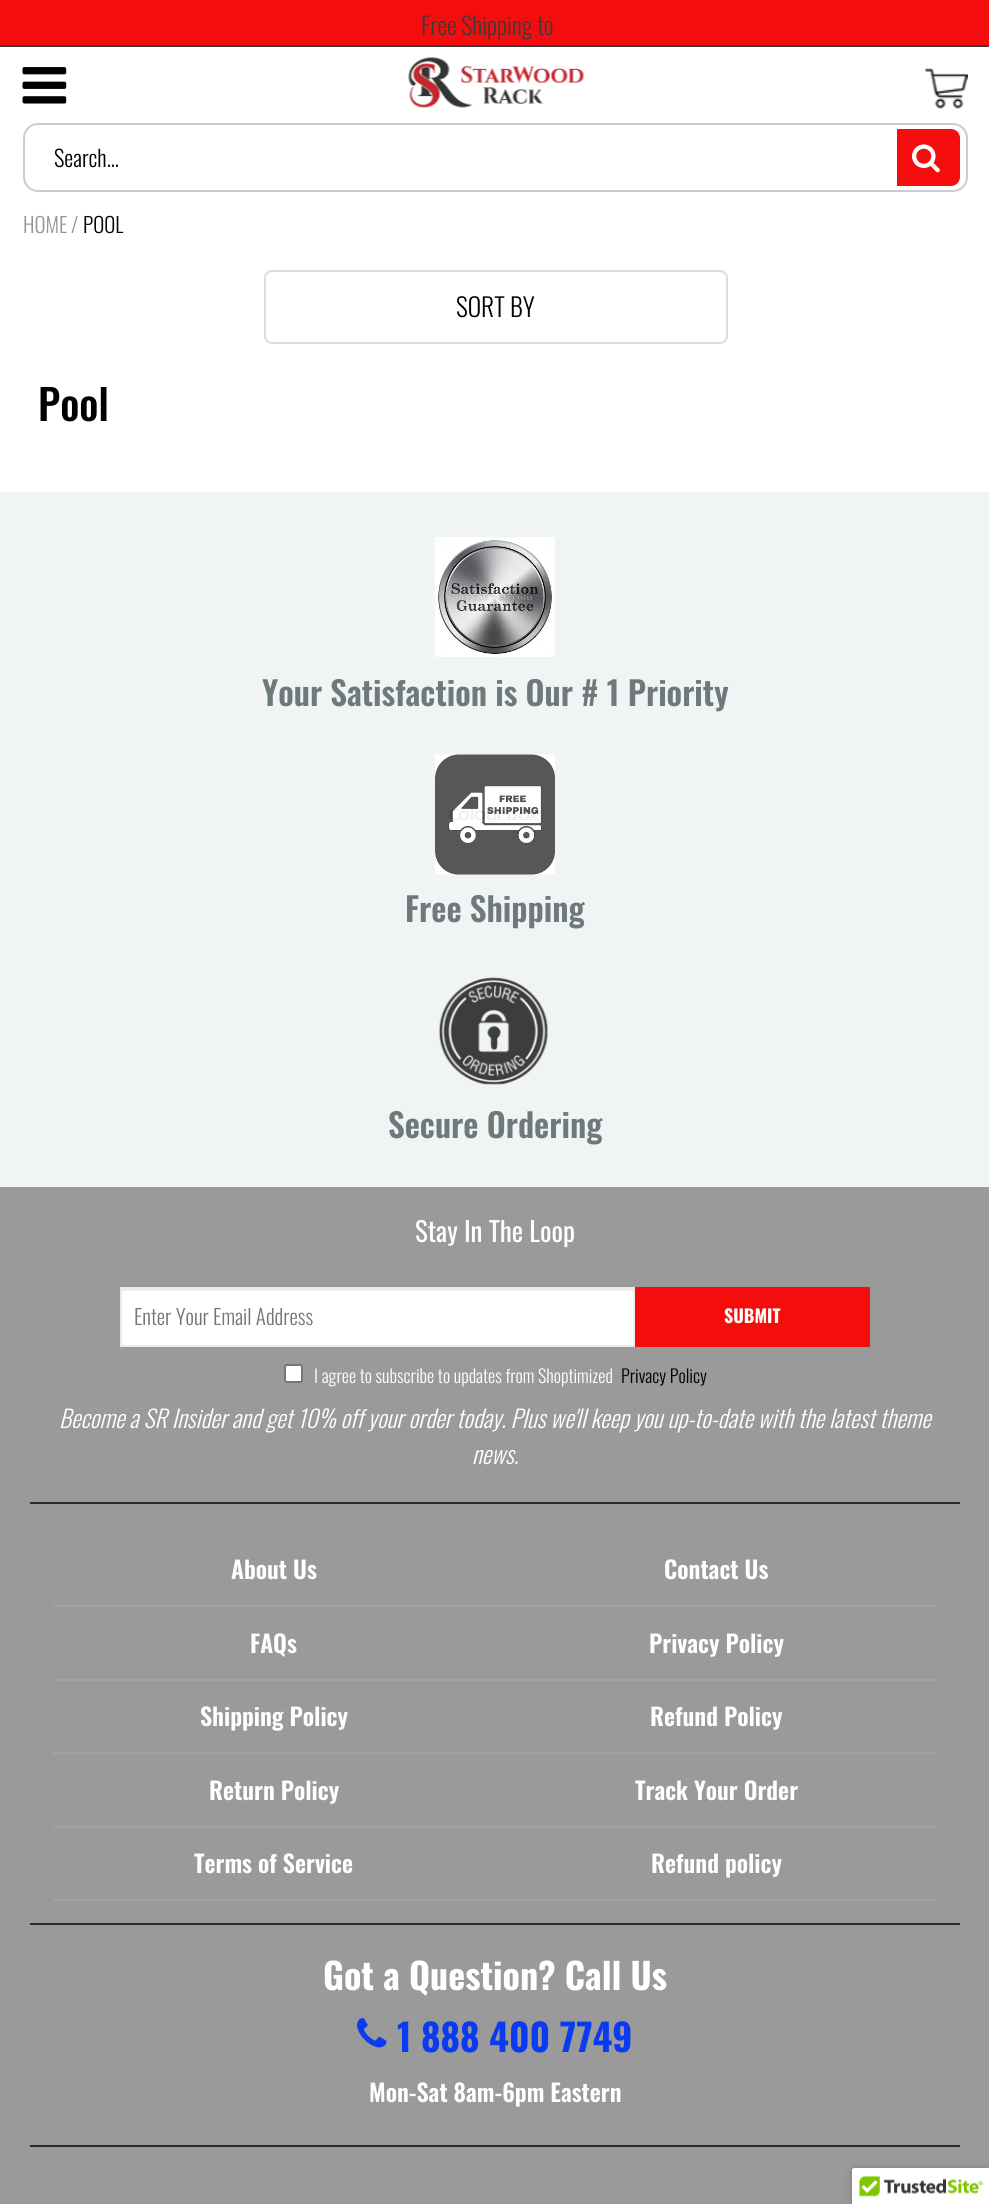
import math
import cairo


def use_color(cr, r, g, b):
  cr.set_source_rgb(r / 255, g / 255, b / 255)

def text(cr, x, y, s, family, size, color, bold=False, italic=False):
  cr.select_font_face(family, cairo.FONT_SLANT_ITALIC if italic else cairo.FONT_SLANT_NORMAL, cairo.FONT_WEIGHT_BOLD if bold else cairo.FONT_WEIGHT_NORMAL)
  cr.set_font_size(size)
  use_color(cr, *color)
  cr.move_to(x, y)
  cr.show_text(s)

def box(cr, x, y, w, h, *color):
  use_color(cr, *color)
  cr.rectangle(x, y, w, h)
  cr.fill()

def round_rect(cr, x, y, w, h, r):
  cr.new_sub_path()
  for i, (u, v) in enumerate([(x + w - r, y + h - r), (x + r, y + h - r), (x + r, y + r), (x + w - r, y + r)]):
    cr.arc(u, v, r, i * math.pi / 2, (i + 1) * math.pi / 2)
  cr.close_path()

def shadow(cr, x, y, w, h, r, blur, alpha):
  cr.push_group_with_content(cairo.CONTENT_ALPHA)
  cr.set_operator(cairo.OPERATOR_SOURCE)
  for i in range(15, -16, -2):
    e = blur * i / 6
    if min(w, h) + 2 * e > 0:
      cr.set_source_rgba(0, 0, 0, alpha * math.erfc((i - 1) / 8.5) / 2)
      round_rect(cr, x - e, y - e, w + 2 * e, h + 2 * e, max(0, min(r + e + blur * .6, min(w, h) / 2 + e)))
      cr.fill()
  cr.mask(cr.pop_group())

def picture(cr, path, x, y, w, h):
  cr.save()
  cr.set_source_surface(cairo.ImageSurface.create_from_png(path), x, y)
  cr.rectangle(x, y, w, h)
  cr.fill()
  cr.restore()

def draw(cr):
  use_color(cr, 255, 255, 255)
  cr.paint()
  box(cr, 0, 0, 989, 45, 245, 13, 13)
  box(cr, 0, 45, 989, 2, 59, 59, 59)
  picture(cr, "img_01.png", 22, 67, 45, 37)
  picture(cr, "img_02.png", 408, 57, 177, 51)
  picture(cr, "img_03.png", 925, 68, 43, 41)
  round_rect(cr, 24, 124, 943, 67, 14)
  use_color(cr, 204, 204, 204)
  cr.stroke()
  use_color(cr, 245, 13, 13)
  cr.new_path()
  cr.move_to(897, 129)
  cr.line_to(951, 129)
  cr.curve_to(956, 129, 960, 133, 960, 138)
  cr.line_to(960, 177)
  cr.curve_to(960, 182, 956, 186, 951, 186)
  cr.line_to(897, 186)
  cr.close_path()
  cr.fill()
  picture(cr, "img_04.png", 912, 144, 28, 29)
  round_rect(cr, 265, 271, 462, 72, 7)
  use_color(cr, 221, 220, 220)
  cr.stroke()
  box(cr, 0, 492, 989, 695, 241, 244, 245)
  picture(cr, "img_05.png", 435, 537, 120, 120)
  picture(cr, "img_06.png", 435, 754, 120, 121)
  picture(cr, "img_07.png", 438, 977, 110, 108)
  box(cr, 0, 1187, 989, 1017, 154, 154, 154)
  box(cr, 30, 1502, 930, 2, 43, 43, 43)
  box(cr, 122, 1291, 511, 54, 255, 255, 255)
  box(cr, 122, 1289, 511, 2, 236, 236, 236)
  cr.rectangle(121, 1288, 513, 58)
  use_color(cr, 235, 235, 235)
  cr.stroke()
  box(cr, 635, 1287, 235, 60, 245, 13, 13)
  use_color(cr, 255, 255, 255)
  round_rect(cr, 285, 1365, 17, 17, 2)
  cr.fill_preserve()
  use_color(cr, 118, 118, 118)
  cr.stroke()
  box(cr, 30, 1923, 930, 2, 43, 43, 43)
  box(cr, 53, 1605, 885, 2, 162, 162, 162)
  box(cr, 53, 1679, 885, 2, 162, 162, 162)
  box(cr, 53, 1752, 885, 2, 162, 162, 162)
  box(cr, 53, 1826, 885, 2, 162, 162, 162)
  box(cr, 53, 1899, 885, 2, 162, 162, 162)
  box(cr, 30, 2145, 930, 2, 43, 43, 43)
  picture(cr, "img_08.png", 357, 2018, 30, 30)
  use_color(cr, 0, 0, 0)
  shadow(cr, 852, 2168, 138, 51, 3, 4, 0.2)
  use_color(cr, 255, 255, 255)
  cr.new_path()
  cr.move_to(855, 2168)
  cr.line_to(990, 2168)
  cr.line_to(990, 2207)
  cr.line_to(852, 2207)
  cr.line_to(852, 2171)
  cr.curve_to(852, 2169.5, 853.5, 2168, 855, 2168)
  cr.close_path()
  cr.fill()
  picture(cr, "img_09.png", 852, 2168, 131, 29)
  text(cr, 421, 35, "Free Shipping to", "Oswald Light", 24, (59, 59, 59))
  text(cr, 54, 167, "Search...", "Oswald Light", 22.5, (0, 0, 0))
  text(cr, 23, 233, "HOME", "Oswald Light", 21, (148, 148, 148))
  text(cr, 71, 233, "/", "Oswald Light", 21, (148, 148, 148))
  text(cr, 83, 233, "POOL", "Oswald Light", 21, (0, 0, 0))
  text(cr, 456, 317, "SORT BY", "Oswald Light", 25.5, (0, 0, 0))
  text(cr, 38, 421, "Pool", "Oswald Medium", 42, (0, 0, 0))
  text(cr, 262, 706, "Your Satisfaction is Our # 1 Priority", "Oswald SemiBold", 33, (110, 121, 122))
  text(cr, 405, 922, "Free Shipping", "Oswald SemiBold", 33, (110, 121, 122))
  text(cr, 388, 1138, "Secure Ordering", "Oswald SemiBold", 33, (110, 121, 122))
  text(cr, 415, 1242, "Stay In The Loop", "Oswald", 27, (255, 255, 255))
  text(cr, 134, 1325, "Enter Your Email Address", "Oswald Light", 21, (117, 117, 117))
  text(cr, 724, 1323, "SUBMIT", "Oswald", 18, (255, 255, 255), bold=True)
  text(cr, 314, 1383, "I agree to subscribe to updates from Shoptimized", "Oswald Light", 18, (255, 255, 255))
  text(cr, 621, 1383, "Privacy Policy", "Oswald Light", 18, (0, 0, 0))
  text(cr, 59, 1428, "Become a SR Insider and get 10% off your order today. Plus we'll keep you up-to-date with the latest theme", "Oswald Light", 24, (255, 255, 255), italic=True)
  text(cr, 472, 1464, "news.", "Oswald Light", 24, (255, 255, 255), italic=True)
  text(cr, 231, 1579, "About Us", "Oswald SemiBold", 24, (255, 255, 255))
  text(cr, 664, 1579, "Contact Us", "Oswald SemiBold", 24, (255, 255, 255))
  text(cr, 250, 1653, "FAQs", "Oswald SemiBold", 24, (255, 255, 255))
  text(cr, 649, 1653, "Privacy Policy", "Oswald SemiBold", 24, (255, 255, 255))
  text(cr, 200, 1726, "Shipping Policy", "Oswald SemiBold", 24, (255, 255, 255))
  text(cr, 650, 1726, "Refund Policy", "Oswald SemiBold", 24, (255, 255, 255))
  text(cr, 209, 1800, "Return Policy", "Oswald SemiBold", 24, (255, 255, 255))
  text(cr, 635, 1800, "Track Your Order", "Oswald SemiBold", 24, (255, 255, 255))
  text(cr, 194, 1873, "Terms of Service", "Oswald SemiBold", 24, (255, 255, 255))
  text(cr, 651, 1873, "Refund policy", "Oswald SemiBold", 24, (255, 255, 255))
  text(cr, 323, 1990, "Got a Question? Call Us", "Oswald", 36, (255, 255, 255), bold=True)
  text(cr, 397, 2052, "1 888 400 7749", "Oswald", 37.5, (11, 59, 241), bold=True)
  text(cr, 369, 2102, "Mon-Sat 8am-6pm Eastern", "Oswald SemiBold", 24, (255, 255, 255))


surface = cairo.ImageSurface(cairo.FORMAT_RGB24, 989, 2204)
cr = cairo.Context(surface)
options = cairo.FontOptions()
options.set_hint_metrics(cairo.HINT_METRICS_OFF)
options.set_hint_style(cairo.HINT_STYLE_NONE)
cr.set_font_options(options)
cr.set_miter_limit(4)
draw(cr)
surface.write_to_png("out.png")
